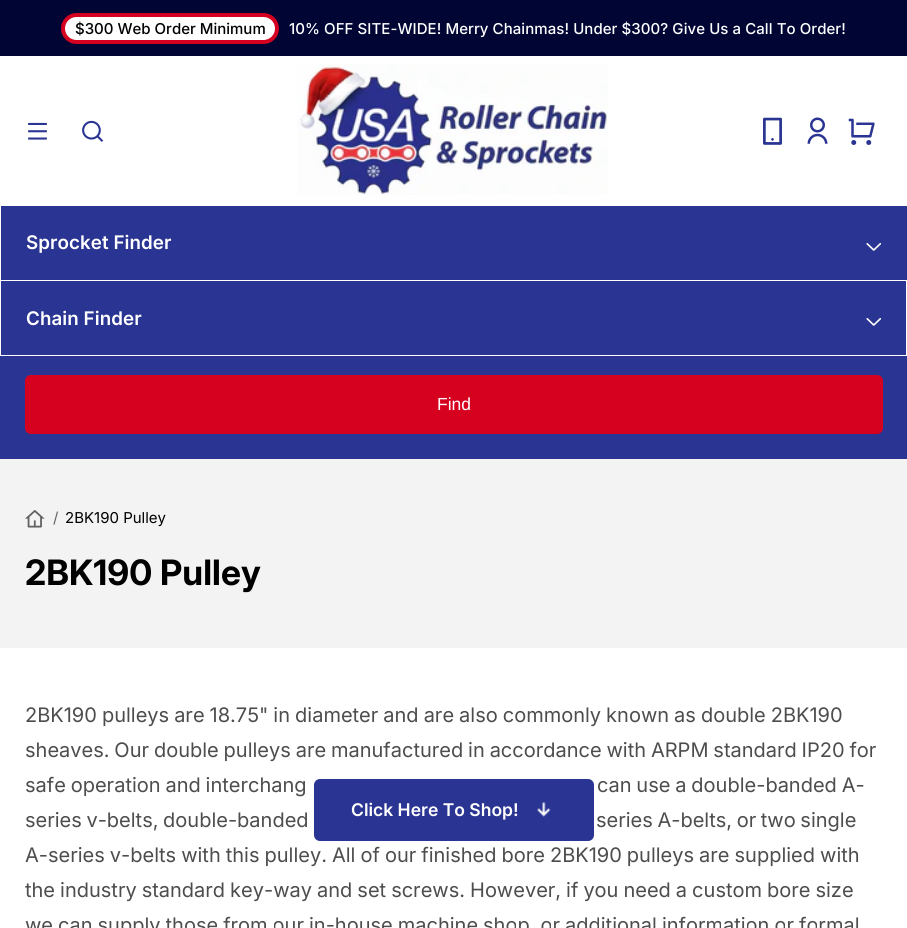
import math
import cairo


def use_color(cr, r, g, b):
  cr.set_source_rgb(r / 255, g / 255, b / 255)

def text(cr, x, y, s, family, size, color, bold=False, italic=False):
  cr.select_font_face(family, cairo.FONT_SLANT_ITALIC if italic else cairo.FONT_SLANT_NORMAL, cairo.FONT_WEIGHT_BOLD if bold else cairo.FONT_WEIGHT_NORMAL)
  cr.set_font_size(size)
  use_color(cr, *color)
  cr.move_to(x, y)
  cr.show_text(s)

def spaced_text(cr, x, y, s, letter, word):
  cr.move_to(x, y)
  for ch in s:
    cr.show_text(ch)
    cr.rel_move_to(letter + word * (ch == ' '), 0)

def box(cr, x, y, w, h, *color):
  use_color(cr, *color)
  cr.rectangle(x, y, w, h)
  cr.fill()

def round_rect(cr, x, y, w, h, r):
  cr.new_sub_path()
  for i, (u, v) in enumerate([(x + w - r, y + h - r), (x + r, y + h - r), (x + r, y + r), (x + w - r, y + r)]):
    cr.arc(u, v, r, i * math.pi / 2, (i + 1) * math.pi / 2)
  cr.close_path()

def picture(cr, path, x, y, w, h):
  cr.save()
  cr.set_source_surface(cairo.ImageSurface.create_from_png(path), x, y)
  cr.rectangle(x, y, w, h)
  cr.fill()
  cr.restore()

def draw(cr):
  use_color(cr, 255, 255, 255)
  cr.paint()
  box(cr, 0, 0, 907, 56, 0, 5, 52)
  use_color(cr, 255, 255, 255)
  round_rect(cr, 63, 15, 214, 27, 13.5)
  cr.fill_preserve()
  use_color(cr, 213, 0, 31)
  cr.set_line_width(4)
  cr.stroke()
  picture(cr, "img_01.png", 28, 122, 19, 18)
  picture(cr, "img_02.png", 82, 120, 22, 22)
  picture(cr, "img_03.png", 297, 64, 311, 131)
  picture(cr, "img_04.png", 763, 117, 19, 28)
  picture(cr, "img_05.png", 807, 117, 21, 27)
  picture(cr, "img_06.png", 848, 118, 27, 27)
  box(cr, 0, 206, 907, 253, 42, 52, 146)
  cr.rectangle(0.5, 205.5, 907, 75)
  use_color(cr, 255, 255, 255)
  cr.set_line_width(1)
  cr.stroke()
  picture(cr, "img_07.png", 866, 243, 15, 8)
  box(cr, 906, 281, 1, 75, 255, 255, 255)
  box(cr, 0, 355, 907, 1, 255, 255, 255)
  box(cr, 0, 281, 1, 75, 255, 255, 255)
  picture(cr, "img_07.png", 866, 318, 15, 8)
  use_color(cr, 214, 0, 31)
  round_rect(cr, 25, 375, 858, 59, 6)
  cr.fill()
  box(cr, 0, 459, 907, 189, 243, 243, 243)
  picture(cr, "img_08.png", 25, 510, 20, 18)
  use_color(cr, 42, 52, 146)
  round_rect(cr, 314, 779, 280, 62, 6)
  cr.fill()
  picture(cr, "img_09.png", 537, 802, 14, 15)
  text(cr, 75, 34, "$300 Web Order Minimum", "Inter Medium", 15, (0, 0, 0))
  use_color(cr, 255, 255, 255)
  spaced_text(cr, 289, 34, "10% OFF SITE-WIDE! Merry Chainmas! Under $300? Give Us a Call To Order!", 0.07, 0)
  cr.select_font_face("Inter SemiBold")
  cr.set_font_size(18.75)
  spaced_text(cr, 26, 249, "Sprocket Finder", 0.07, 0)
  spaced_text(cr, 26, 325, "Chain Finder", 0.07, 0)
  text(cr, 437, 410, "Find", "Liberation Sans", 17.5, (255, 255, 255))
  text(cr, 53, 523, "/", "Inter", 15, (97, 97, 97))
  text(cr, 65, 523, "2BK190 Pulley", "Inter", 15, (0, 0, 0))
  cr.select_font_face("Inter", cairo.FONT_SLANT_NORMAL, cairo.FONT_WEIGHT_BOLD)
  cr.set_font_size(35)
  spaced_text(cr, 25, 585, "2BK190 Pulley", 0.07, 0)
  cr.select_font_face("Inter")
  cr.set_font_size(20)
  use_color(cr, 77, 77, 77)
  spaced_text(cr, 25, 722, "2BK190 pulleys are 18.75\" in diameter and are also commonly known as double 2BK190", 0, -0.6)
  spaced_text(cr, 25, 757, "sheaves. Our double pulleys are manufactured in accordance with ARPM standard IP20 for", 0, -0.75)
  spaced_text(cr, 25, 792, "safe operation and interchang", 0, -0.75)
  spaced_text(cr, 597, 792, "can use a double-banded A-", 0, -0.75)
  spaced_text(cr, 25, 827, "series v-belts, double-banded", 0, -1)
  spaced_text(cr, 596, 827, "series A-belts, or two single", 0, -1)
  spaced_text(cr, 25, 862, "A-series v-belts with this pulley. All of our finished bore 2BK190 pulleys are supplied with", 0, -0.6)
  spaced_text(cr, 25, 897, "the industry standard key-way and set screws. However, if you need a custom bore size", 0, -0.6)
  spaced_text(cr, 25, 932, "we can supply those from our in-house machine shop. or additional information or formal", 0, -0.6)
  text(cr, 351, 816, "Click Here To Shop!", "Inter SemiBold", 17.5, (255, 255, 255))


surface = cairo.ImageSurface(cairo.FORMAT_RGB24, 907, 928)
cr = cairo.Context(surface)
options = cairo.FontOptions()
options.set_hint_metrics(cairo.HINT_METRICS_OFF)
options.set_hint_style(cairo.HINT_STYLE_NONE)
cr.set_font_options(options)
cr.set_miter_limit(4)
draw(cr)
surface.write_to_png("out.png")
